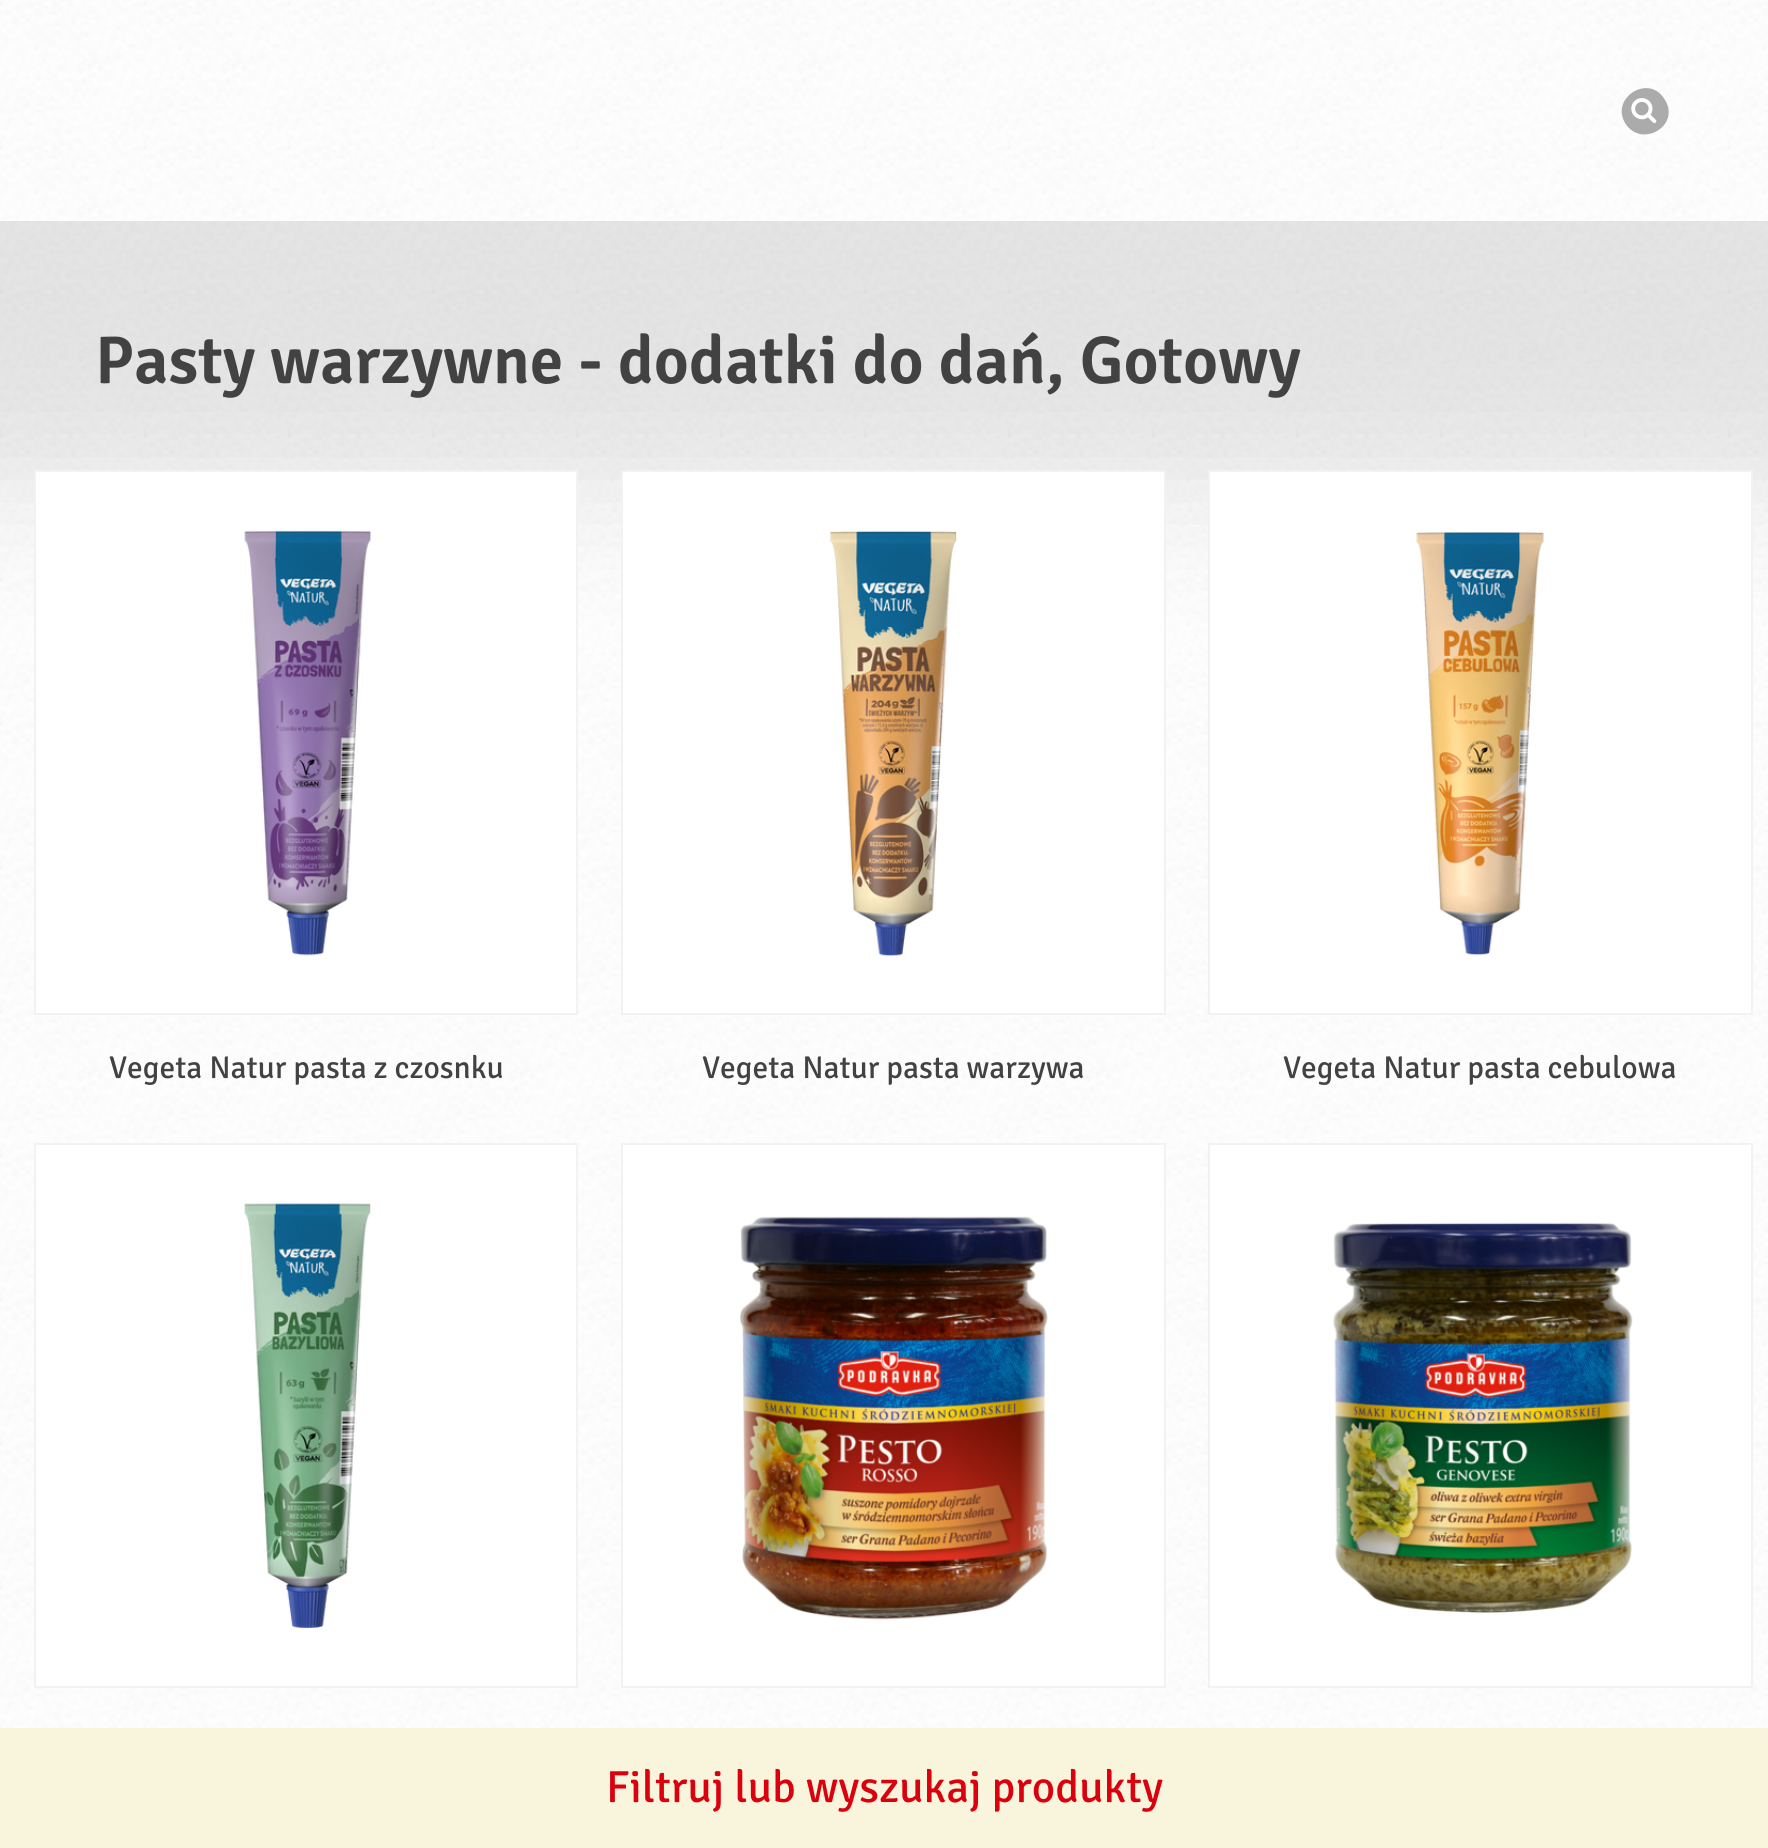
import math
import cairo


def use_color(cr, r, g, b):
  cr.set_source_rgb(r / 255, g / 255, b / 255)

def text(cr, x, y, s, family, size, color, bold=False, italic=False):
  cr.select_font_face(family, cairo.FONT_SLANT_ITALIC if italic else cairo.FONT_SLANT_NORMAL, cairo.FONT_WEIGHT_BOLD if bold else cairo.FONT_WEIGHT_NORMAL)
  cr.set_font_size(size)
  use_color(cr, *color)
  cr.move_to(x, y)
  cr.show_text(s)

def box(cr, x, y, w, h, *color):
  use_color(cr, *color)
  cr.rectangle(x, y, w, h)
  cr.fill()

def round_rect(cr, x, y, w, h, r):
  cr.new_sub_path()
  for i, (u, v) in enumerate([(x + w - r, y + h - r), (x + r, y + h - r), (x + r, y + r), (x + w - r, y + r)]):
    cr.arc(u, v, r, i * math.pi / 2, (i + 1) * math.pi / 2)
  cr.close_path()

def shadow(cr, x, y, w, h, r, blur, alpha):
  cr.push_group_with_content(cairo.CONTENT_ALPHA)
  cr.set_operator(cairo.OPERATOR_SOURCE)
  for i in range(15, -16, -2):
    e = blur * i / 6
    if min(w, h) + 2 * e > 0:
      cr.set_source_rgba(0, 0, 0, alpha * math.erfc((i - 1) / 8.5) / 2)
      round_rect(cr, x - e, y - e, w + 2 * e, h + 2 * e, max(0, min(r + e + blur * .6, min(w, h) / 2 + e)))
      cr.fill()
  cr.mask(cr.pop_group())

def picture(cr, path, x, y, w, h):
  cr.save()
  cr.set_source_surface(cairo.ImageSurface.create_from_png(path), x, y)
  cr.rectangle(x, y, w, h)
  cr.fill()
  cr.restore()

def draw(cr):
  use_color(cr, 255, 255, 255)
  cr.paint()
  picture(cr, "img_01.png", 0, 221, 1768, 1507)
  use_color(cr, 0, 0, 0)
  shadow(cr, -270, -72, 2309, 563, 281.5, 67.5, 0.1)
  box(cr, 0, 220, 1768, 1, 255, 255, 255)
  picture(cr, "img_02.png", 0, 0, 1768, 220)
  use_color(cr, 171, 171, 171)
  cr.new_path()
  cr.move_to(1665, 100)
  cr.curve_to(1681, 126, 1641, 149, 1625, 123)
  cr.curve_to(1610, 97, 1650, 73, 1665, 100)
  cr.close_path()
  cr.fill()
  picture(cr, "img_03.png", 1631, 98, 26, 26)
  box(cr, 38, 365, 2, 2, 228, 228, 228)
  box(cr, 1334, 365, 434, 2, 228, 228, 228)
  use_color(cr, 255, 255, 255)
  cr.rectangle(35, 471, 542, 543)
  cr.fill_preserve()
  use_color(cr, 242, 242, 242)
  cr.stroke()
  picture(cr, "img_04.png", 244, 530, 127, 426)
  use_color(cr, 255, 255, 255)
  cr.rectangle(622, 471, 543, 543)
  cr.fill_preserve()
  use_color(cr, 242, 242, 242)
  cr.stroke()
  picture(cr, "img_05.png", 829, 531, 128, 426)
  use_color(cr, 255, 255, 255)
  cr.rectangle(1209, 471, 543, 543)
  cr.fill_preserve()
  use_color(cr, 242, 242, 242)
  cr.stroke()
  picture(cr, "img_06.png", 1416, 532, 128, 424)
  use_color(cr, 255, 255, 255)
  cr.rectangle(35, 1144, 542, 543)
  cr.fill_preserve()
  use_color(cr, 242, 242, 242)
  cr.stroke()
  picture(cr, "img_07.png", 244, 1203, 127, 426)
  use_color(cr, 255, 255, 255)
  cr.rectangle(622, 1144, 543, 543)
  cr.fill_preserve()
  use_color(cr, 242, 242, 242)
  cr.stroke()
  picture(cr, "img_08.png", 739, 1216, 309, 404)
  use_color(cr, 255, 255, 255)
  cr.rectangle(1209, 1144, 543, 543)
  cr.fill_preserve()
  use_color(cr, 242, 242, 242)
  cr.stroke()
  picture(cr, "img_09.png", 1333, 1222, 300, 392)
  box(cr, 0, 1728, 1768, 120, 248, 245, 220)
  text(cr, 95, 383, "Pasty warzywne - dodatki do dań, Gotowy", "Signika SemiBold", 67.5, (66, 66, 66))
  text(cr, 109, 1078, "Vegeta Natur pasta z czosnku", "Signika", 31.5, (66, 66, 66))
  text(cr, 702, 1078, "Vegeta Natur pasta warzywa", "Signika", 31.5, (66, 66, 66))
  text(cr, 1283, 1078, "Vegeta Natur pasta cebulowa", "Signika", 31.5, (66, 66, 66))
  text(cr, 606, 1802, "Filtruj lub wyszukaj produkty", "Signika", 45, (218, 0, 13))


surface = cairo.ImageSurface(cairo.FORMAT_RGB24, 1768, 1848)
cr = cairo.Context(surface)
options = cairo.FontOptions()
options.set_hint_metrics(cairo.HINT_METRICS_OFF)
options.set_hint_style(cairo.HINT_STYLE_NONE)
cr.set_font_options(options)
cr.set_miter_limit(4)
draw(cr)
surface.write_to_png("out.png")
